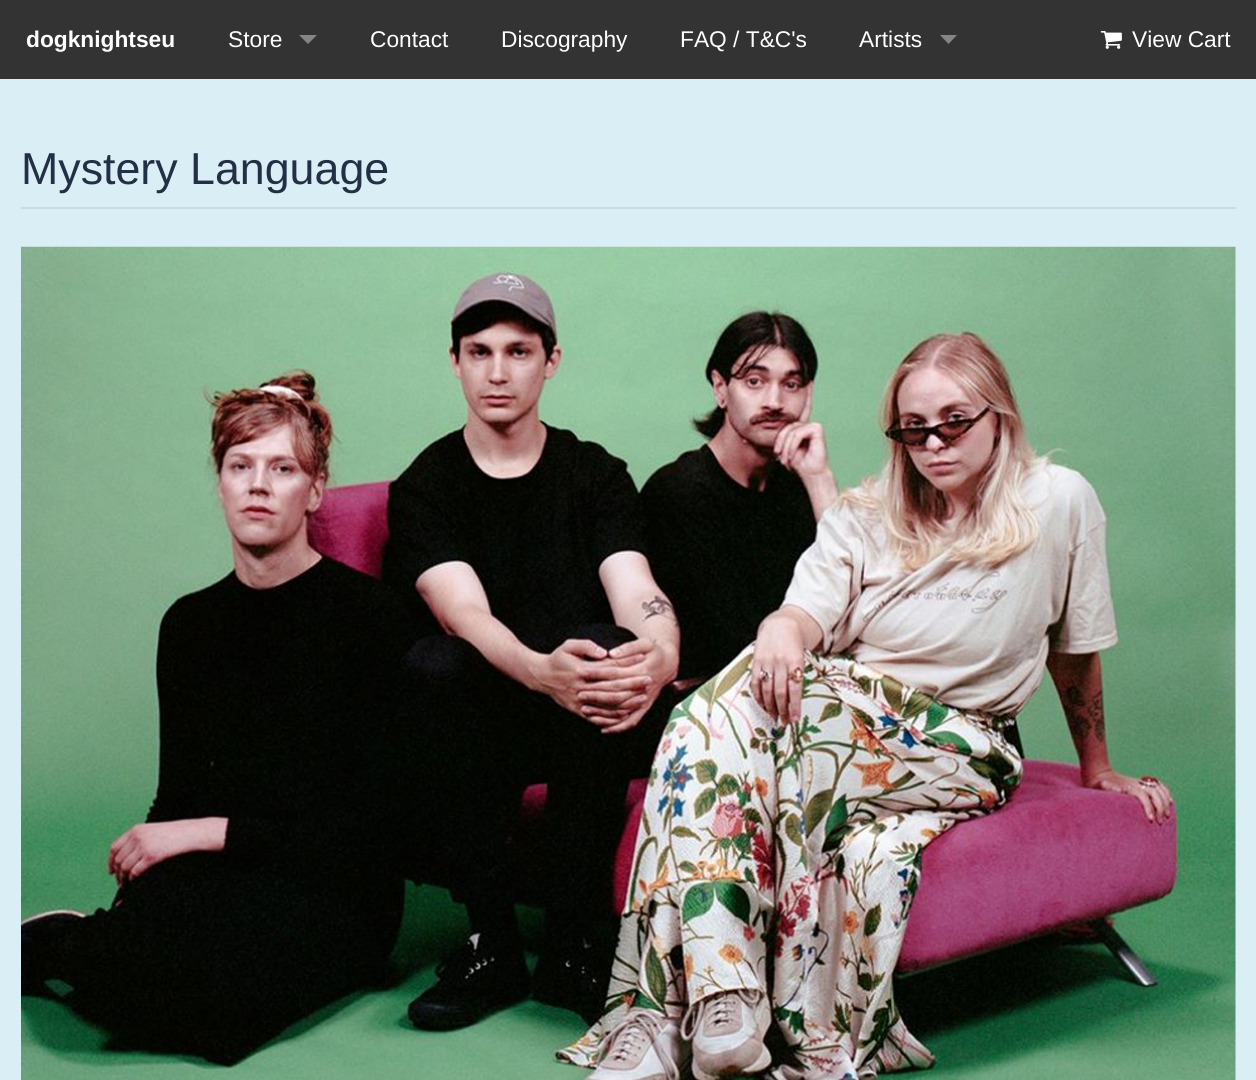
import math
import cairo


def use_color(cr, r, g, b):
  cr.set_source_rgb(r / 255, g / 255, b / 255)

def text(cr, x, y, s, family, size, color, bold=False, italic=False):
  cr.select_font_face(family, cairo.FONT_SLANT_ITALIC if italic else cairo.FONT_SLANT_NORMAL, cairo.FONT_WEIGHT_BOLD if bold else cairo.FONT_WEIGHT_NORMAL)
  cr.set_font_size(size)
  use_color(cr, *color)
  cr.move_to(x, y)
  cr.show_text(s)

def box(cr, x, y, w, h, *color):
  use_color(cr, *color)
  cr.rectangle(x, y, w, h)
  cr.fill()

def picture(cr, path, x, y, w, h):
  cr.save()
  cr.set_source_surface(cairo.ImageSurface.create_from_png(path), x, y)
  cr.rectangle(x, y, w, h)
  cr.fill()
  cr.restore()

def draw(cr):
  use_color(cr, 51, 51, 51)
  cr.paint()
  use_color(cr, 133, 133, 133)
  cr.new_path()
  cr.move_to(299, 35)
  cr.line_to(317, 35)
  cr.line_to(308, 44)
  cr.close_path()
  cr.fill()
  cr.new_path()
  cr.move_to(940, 35)
  cr.line_to(957, 35)
  cr.line_to(948.5, 44)
  cr.close_path()
  cr.fill()
  picture(cr, "img_01.png", 1100, 31, 22, 18)
  box(cr, 0, 79, 1256, 1001, 218, 238, 245)
  box(cr, 21, 207, 1215, 2, 202, 220, 227)
  picture(cr, "img_02.png", 21, 246, 1215, 834)
  text(cr, 26, 47, "dogknightseu", "Liberation Sans", 22.75, (255, 255, 255), bold=True)
  text(cr, 228, 47, "Store", "Liberation Sans", 22.75, (255, 255, 255))
  text(cr, 370, 47, "Contact", "Liberation Sans", 22.75, (255, 255, 255))
  text(cr, 501, 47, "Discography", "Liberation Sans", 22.75, (255, 255, 255))
  text(cr, 680, 47, "FAQ / T&C's", "Liberation Sans", 22.75, (255, 255, 255))
  text(cr, 859, 47, "Artists", "Liberation Sans", 22.75, (255, 255, 255))
  text(cr, 1132, 47, "View Cart", "Liberation Sans", 22.75, (255, 255, 255))
  text(cr, 21, 184, "Mystery Language", "Liberation Sans", 44.75, (35, 47, 69))


surface = cairo.ImageSurface(cairo.FORMAT_RGB24, 1256, 1080)
cr = cairo.Context(surface)
options = cairo.FontOptions()
options.set_hint_metrics(cairo.HINT_METRICS_OFF)
options.set_hint_style(cairo.HINT_STYLE_NONE)
cr.set_font_options(options)
cr.set_miter_limit(4)
draw(cr)
surface.write_to_png("out.png")
